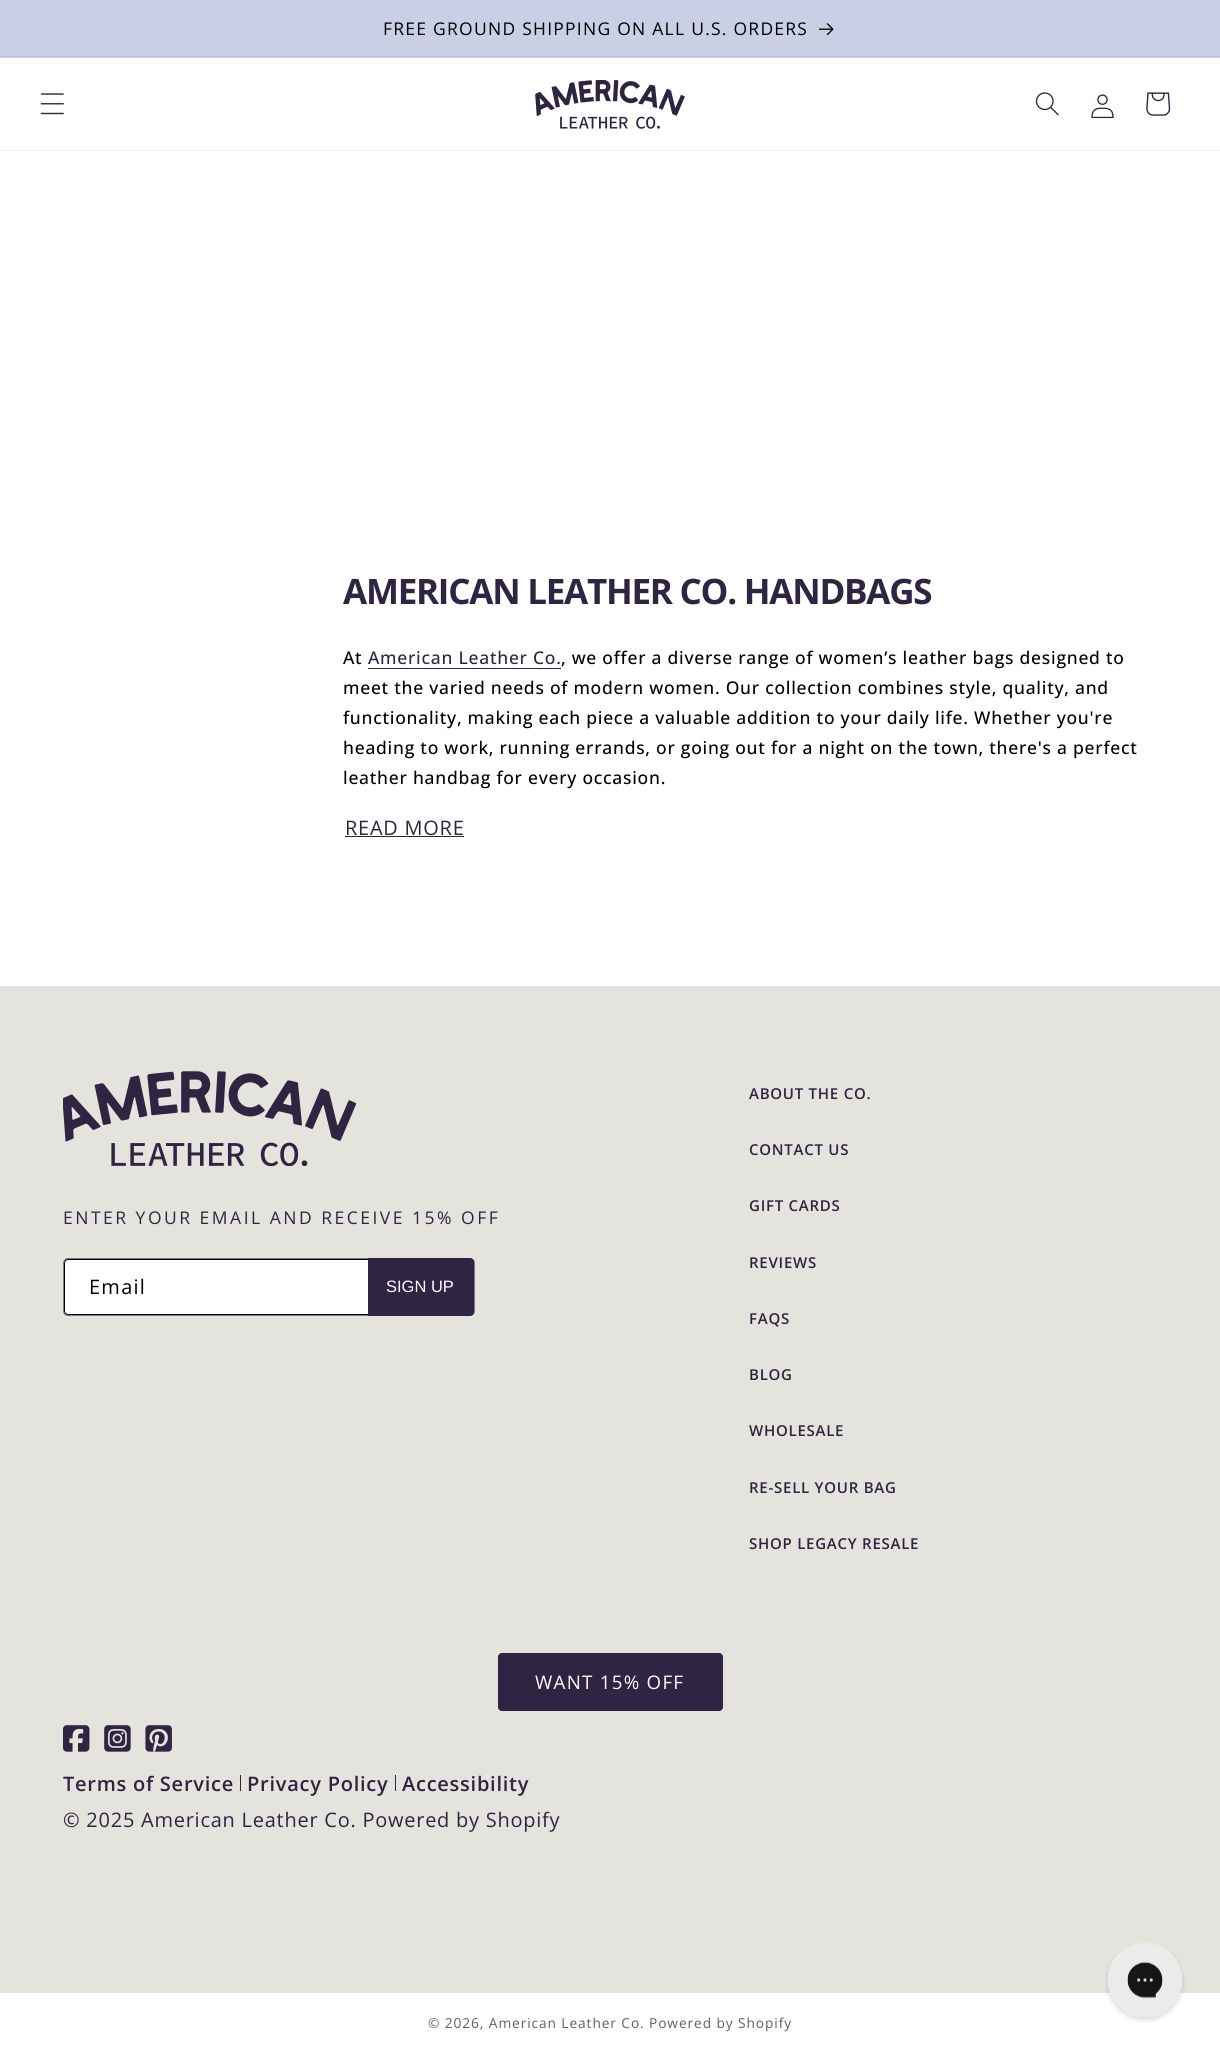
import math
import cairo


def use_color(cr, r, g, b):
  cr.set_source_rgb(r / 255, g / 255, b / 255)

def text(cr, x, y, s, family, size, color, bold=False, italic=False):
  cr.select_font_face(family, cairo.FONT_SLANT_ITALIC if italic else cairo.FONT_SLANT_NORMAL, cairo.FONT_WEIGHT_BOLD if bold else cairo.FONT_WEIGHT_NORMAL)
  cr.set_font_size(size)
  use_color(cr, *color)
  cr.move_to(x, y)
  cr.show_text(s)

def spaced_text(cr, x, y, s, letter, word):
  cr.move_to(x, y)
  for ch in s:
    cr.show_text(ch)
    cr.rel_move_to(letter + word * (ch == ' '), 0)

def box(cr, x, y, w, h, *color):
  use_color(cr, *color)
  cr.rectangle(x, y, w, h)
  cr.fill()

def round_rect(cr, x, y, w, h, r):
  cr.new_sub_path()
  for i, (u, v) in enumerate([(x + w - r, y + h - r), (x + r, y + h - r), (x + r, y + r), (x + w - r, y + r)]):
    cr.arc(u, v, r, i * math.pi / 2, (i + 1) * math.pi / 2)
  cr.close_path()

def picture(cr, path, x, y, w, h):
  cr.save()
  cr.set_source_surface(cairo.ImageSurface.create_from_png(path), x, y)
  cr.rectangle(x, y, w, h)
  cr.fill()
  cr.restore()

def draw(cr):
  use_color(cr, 255, 255, 255)
  cr.paint()
  box(cr, 0, 0, 1220, 58, 201, 207, 228)
  box(cr, 0, 56, 1220, 1, 186, 192, 211)
  picture(cr, "img_01.png", 819, 23, 15, 13)
  box(cr, 0, 150, 1220, 1, 238, 237, 240)
  picture(cr, "img_02.png", 40, 93, 24, 22)
  picture(cr, "img_03.png", 535, 80, 150, 49)
  picture(cr, "img_04.png", 1035, 92, 24, 24)
  picture(cr, "img_05.png", 1091, 94, 23, 25)
  picture(cr, "img_06.png", 1146, 92, 25, 24)
  box(cr, 368, 668, 193, 1, 47, 36, 65)
  box(cr, 345, 836, 119, 1, 47, 36, 65)
  box(cr, 0, 986, 1220, 1007, 229, 227, 221)
  picture(cr, "img_07.png", 63, 1071, 293, 95)
  use_color(cr, 255, 255, 255)
  round_rect(cr, 64.5, 1259.5, 409, 55, 3.5)
  cr.fill_preserve()
  use_color(cr, 0, 0, 0)
  cr.set_line_width(1)
  cr.stroke()
  round_rect(cr, 63.5, 1258.5, 411, 57, 4.5)
  cr.set_source_rgba(0.184, 0.141, 0.255, 0.55)
  cr.stroke()
  use_color(cr, 47, 36, 65)
  cr.new_path()
  cr.move_to(368, 1258)
  cr.line_to(470, 1258)
  cr.curve_to(472, 1258, 474, 1260, 474, 1262)
  cr.line_to(474, 1312)
  cr.curve_to(474, 1314, 472, 1316, 470, 1316)
  cr.line_to(368, 1316)
  cr.close_path()
  cr.fill()
  round_rect(cr, 498, 1653, 225, 58, 4)
  cr.fill()
  picture(cr, "img_08.png", 63, 1725, 27, 27)
  picture(cr, "img_09.png", 104, 1725, 27, 27)
  picture(cr, "img_10.png", 145, 1725, 27, 27)
  box(cr, 240, 1775, 1, 16, 47, 36, 65)
  box(cr, 395, 1775, 1, 16, 47, 36, 65)
  picture(cr, "img_11.png", 1105, 1943, 80, 80)
  cr.select_font_face("Open Sans")
  cr.set_font_size(17.5)
  use_color(cr, 0, 0, 0)
  spaced_text(cr, 383, 35, "FREE GROUND SHIPPING ON ALL U.S. ORDERS", 1.25, 0)
  cr.select_font_face("Open Sans", cairo.FONT_SLANT_NORMAL, cairo.FONT_WEIGHT_BOLD)
  cr.set_font_size(35)
  use_color(cr, 47, 36, 65)
  spaced_text(cr, 343, 604, "AMERICAN LEATHER CO. HANDBAGS", -1.25, 0)
  cr.select_font_face("Open Sans Medium")
  cr.set_font_size(17.5)
  use_color(cr, 0, 0, 0)
  spaced_text(cr, 343, 664, "At", 0.75, 0)
  use_color(cr, 47, 36, 65)
  spaced_text(cr, 368, 664, "American Leather Co.", 0.75, 0)
  use_color(cr, 0, 0, 0)
  spaced_text(cr, 561, 664, ", we offer a diverse range of women’s leather bags designed to", 0.75, 0)
  spaced_text(cr, 343, 694, "meet the varied needs of modern women. Our collection combines style, quality, and", 0.75, 0)
  spaced_text(cr, 343, 724, "functionality, making each piece a valuable addition to your daily life. Whether you're", 0.75, 0)
  spaced_text(cr, 343, 754, "heading to work, running errands, or going out for a night on the town, there's a perfect", 0.75, 0)
  spaced_text(cr, 343, 784, "leather handbag for every occasion.", 0.75, 0)
  cr.select_font_face("Open Sans")
  cr.set_font_size(20)
  use_color(cr, 47, 36, 65)
  spaced_text(cr, 345, 835, "READ MORE", 0.75, 0)
  cr.set_font_size(17.5)
  spaced_text(cr, 63, 1224, "ENTER YOUR EMAIL AND RECEIVE 15% OFF", 2.5, 0)
  cr.set_font_size(20)
  use_color(cr, 0, 0, 0)
  spaced_text(cr, 89, 1294, "Email", 1.25, 0)
  text(cr, 386, 1292, "SIGN UP", "Liberation Sans", 16.5, (255, 255, 255))
  cr.select_font_face("Open Sans SemiBold")
  cr.set_font_size(15)
  use_color(cr, 47, 36, 65)
  spaced_text(cr, 749, 1099, "ABOUT THE CO.", 0.75, 0)
  spaced_text(cr, 749, 1155, "CONTACT US", 0.75, 0)
  spaced_text(cr, 749, 1211, "GIFT CARDS", 0.75, 0)
  spaced_text(cr, 749, 1268, "REVIEWS", 0.75, 0)
  spaced_text(cr, 749, 1324, "FAQS", 0.75, 0)
  spaced_text(cr, 749, 1380, "BLOG", 0.75, 0)
  spaced_text(cr, 749, 1436, "WHOLESALE", 0.75, 0)
  spaced_text(cr, 749, 1493, "RE-SELL YOUR BAG", 0.75, 0)
  spaced_text(cr, 749, 1549, "SHOP LEGACY RESALE", 0.75, 0)
  cr.select_font_face("Open Sans")
  cr.set_font_size(18.75)
  use_color(cr, 255, 255, 255)
  spaced_text(cr, 535, 1689, "WANT 15% OFF", 1.25, 0)
  cr.select_font_face("Open Sans SemiBold")
  cr.set_font_size(20)
  use_color(cr, 47, 36, 65)
  spaced_text(cr, 63, 1791, "Terms of Service", 0.75, 0)
  spaced_text(cr, 247, 1791, "Privacy Policy", 0.75, 0)
  spaced_text(cr, 402, 1791, "Accessibility", 0.75, 0)
  cr.select_font_face("Open Sans")
  spaced_text(cr, 63, 1827, "© 2025 American Leather Co. Powered by Shopify", 0.75, 0)
  cr.set_font_size(13.75)
  use_color(cr, 99, 91, 113)
  spaced_text(cr, 428, 2028, "© 2026, American Leather Co.", 0.9, 0)
  spaced_text(cr, 649, 2028, "Powered by Shopify", 0.9, 0)


surface = cairo.ImageSurface(cairo.FORMAT_RGB24, 1220, 2055)
cr = cairo.Context(surface)
options = cairo.FontOptions()
options.set_hint_metrics(cairo.HINT_METRICS_OFF)
options.set_hint_style(cairo.HINT_STYLE_NONE)
cr.set_font_options(options)
cr.set_miter_limit(4)
draw(cr)
surface.write_to_png("out.png")
